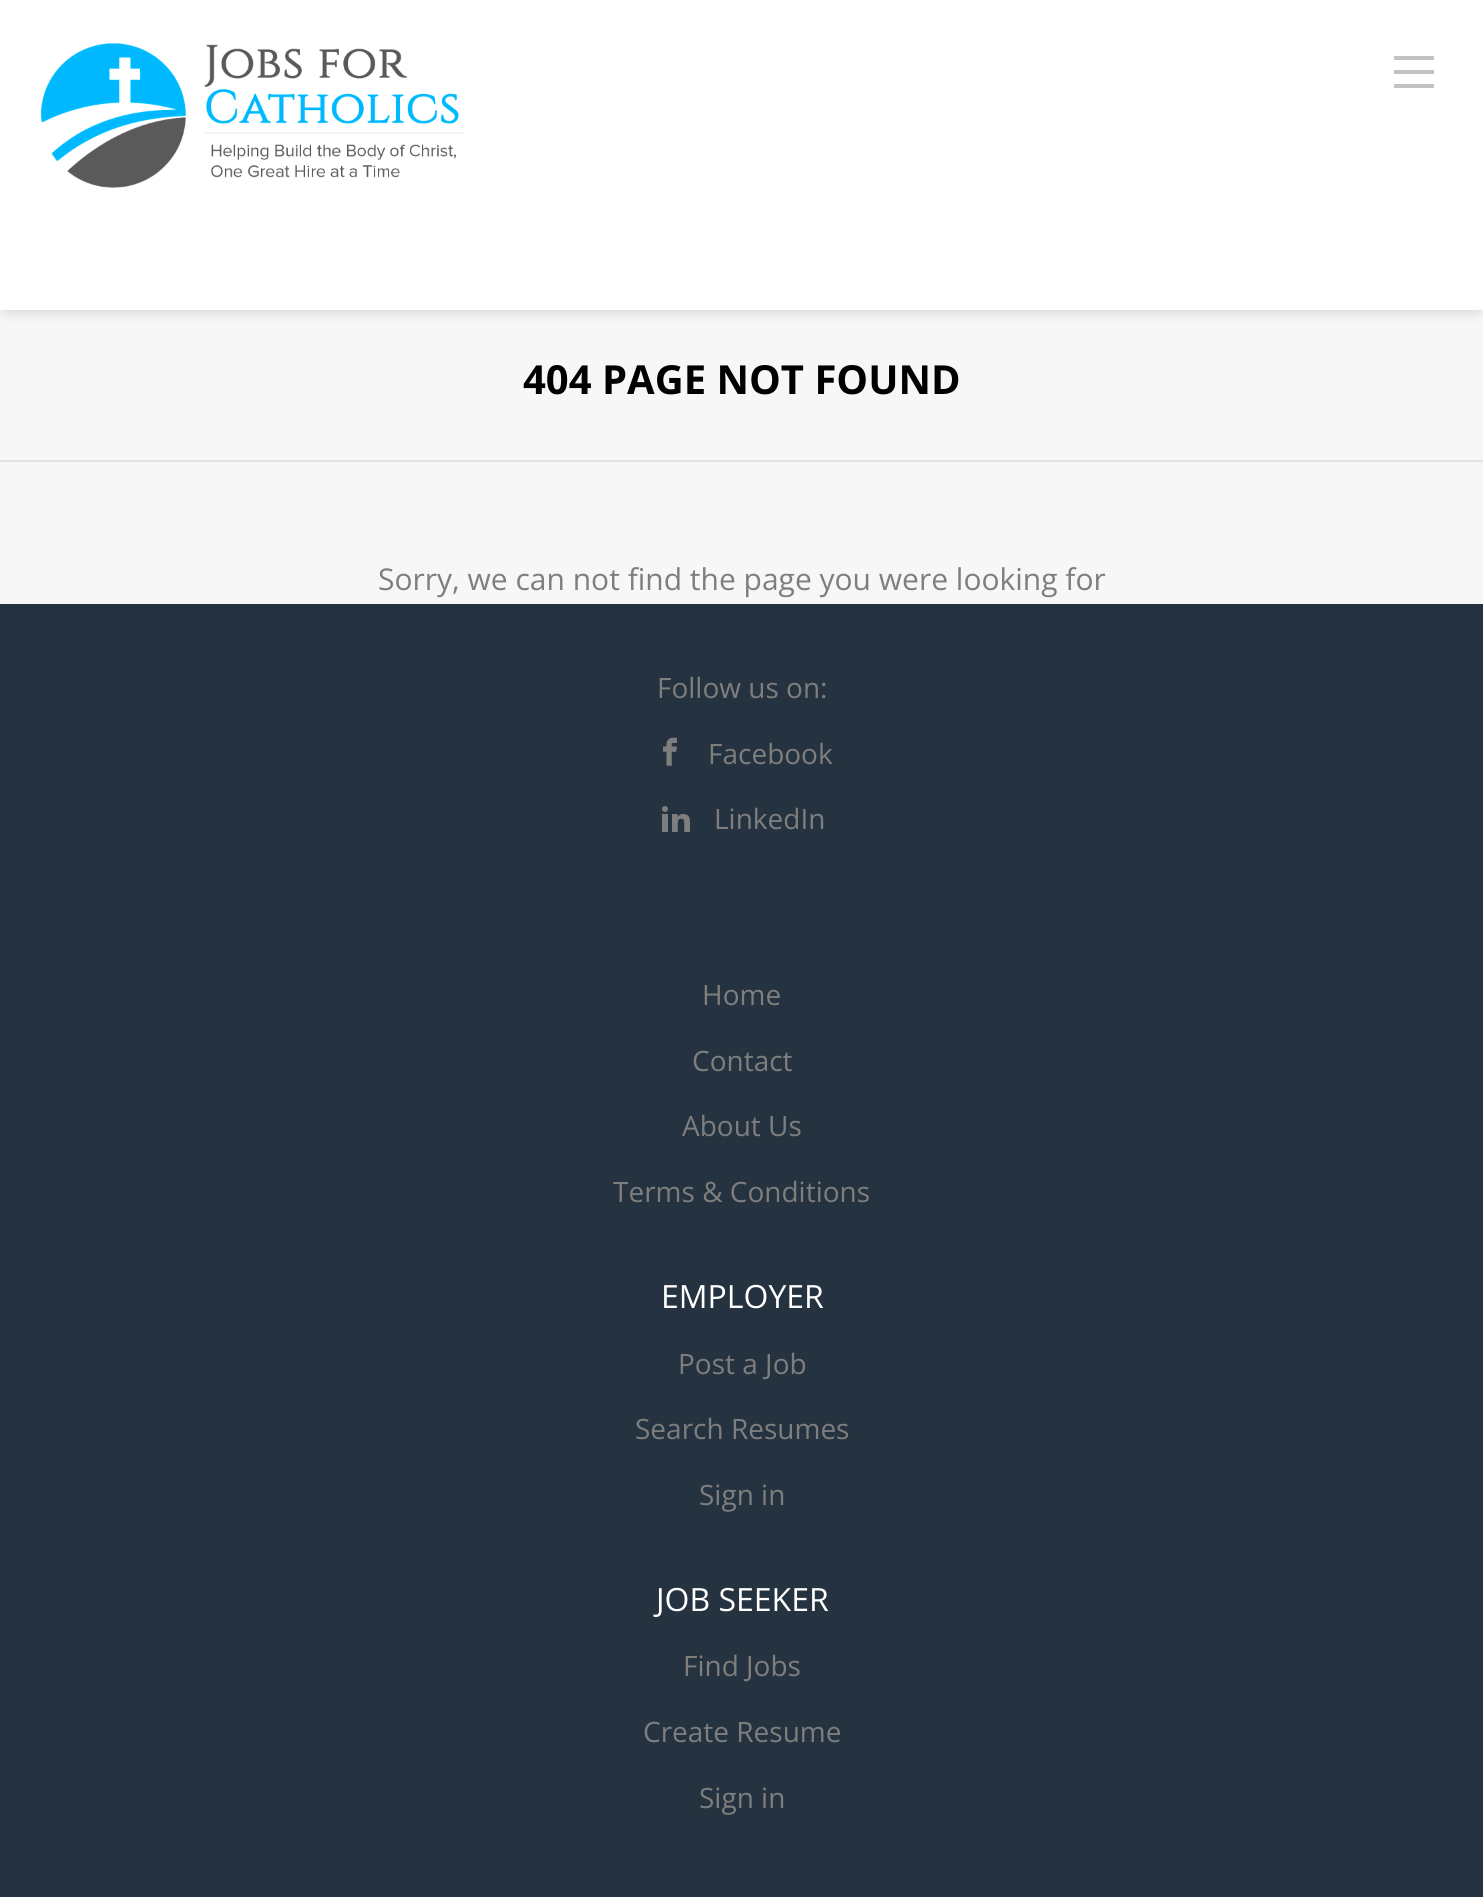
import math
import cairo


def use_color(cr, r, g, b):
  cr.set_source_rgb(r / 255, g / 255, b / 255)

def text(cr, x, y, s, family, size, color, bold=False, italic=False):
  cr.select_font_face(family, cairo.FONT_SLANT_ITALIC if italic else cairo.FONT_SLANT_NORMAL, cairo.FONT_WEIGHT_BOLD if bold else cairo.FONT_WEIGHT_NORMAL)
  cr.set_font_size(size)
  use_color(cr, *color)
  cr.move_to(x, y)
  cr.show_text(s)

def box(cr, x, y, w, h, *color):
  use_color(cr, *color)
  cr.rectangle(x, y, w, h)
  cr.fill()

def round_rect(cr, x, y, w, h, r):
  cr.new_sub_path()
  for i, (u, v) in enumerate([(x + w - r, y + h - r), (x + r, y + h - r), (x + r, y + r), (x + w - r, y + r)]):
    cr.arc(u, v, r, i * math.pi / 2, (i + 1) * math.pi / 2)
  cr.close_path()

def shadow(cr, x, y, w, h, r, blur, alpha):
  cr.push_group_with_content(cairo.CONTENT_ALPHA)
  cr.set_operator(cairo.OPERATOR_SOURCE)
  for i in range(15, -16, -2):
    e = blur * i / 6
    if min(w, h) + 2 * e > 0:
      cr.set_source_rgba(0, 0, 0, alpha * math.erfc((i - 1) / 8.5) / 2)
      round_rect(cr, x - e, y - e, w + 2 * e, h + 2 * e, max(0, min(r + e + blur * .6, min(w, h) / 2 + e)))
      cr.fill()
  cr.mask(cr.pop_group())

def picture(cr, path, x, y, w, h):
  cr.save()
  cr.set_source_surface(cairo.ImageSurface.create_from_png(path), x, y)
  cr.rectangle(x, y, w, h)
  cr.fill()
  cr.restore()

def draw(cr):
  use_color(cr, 247, 247, 247)
  cr.paint()
  use_color(cr, 0, 0, 0)
  shadow(cr, 8, 12, 1468, 294, 0, 9, 0.3)
  box(cr, 0, 0, 1483, 310, 255, 255, 255)
  picture(cr, "img_01.png", 40, 43, 425, 145)
  box(cr, 1394, 70, 40, 4, 194, 194, 194)
  box(cr, 1394, 56, 40, 4, 194, 194, 194)
  box(cr, 1394, 84, 40, 4, 194, 194, 194)
  box(cr, 0, 460, 1483, 2, 225, 225, 225)
  box(cr, 0, 604, 1483, 1293, 37, 50, 63)
  picture(cr, "img_02.png", 663, 737, 14, 29)
  picture(cr, "img_03.png", 662, 806, 28, 26)
  text(cr, 523, 394, "404 PAGE NOT FOUND", "Open Sans", 40, (0, 0, 0), bold=True)
  text(cr, 378, 590, "Sorry, we can not find the page you were looking for", "Open Sans", 30, (126, 126, 126))
  text(cr, 657, 698, "Follow us on:", "Open Sans", 28, (126, 126, 126))
  text(cr, 708, 764, "Facebook", "Open Sans", 28, (126, 126, 126))
  text(cr, 714, 829, "LinkedIn", "Open Sans", 28, (126, 126, 126))
  text(cr, 702, 1005, "Home", "Open Sans", 28, (126, 126, 126))
  text(cr, 692, 1071, "Contact", "Open Sans", 28, (126, 126, 126))
  text(cr, 682, 1136, "About Us", "Open Sans", 28, (126, 126, 126))
  text(cr, 613, 1202, "Terms & Conditions", "Open Sans", 28, (126, 126, 126))
  text(cr, 661, 1308, "EMPLOYER", "Open Sans", 32, (255, 255, 255))
  text(cr, 678, 1374, "Post a Job", "Open Sans", 28, (126, 126, 126))
  text(cr, 635, 1439, "Search Resumes", "Open Sans", 28, (126, 126, 126))
  text(cr, 699, 1505, "Sign in", "Open Sans", 28, (126, 126, 126))
  text(cr, 656, 1611, "JOB SEEKER", "Open Sans", 32, (255, 255, 255))
  text(cr, 683, 1676, "Find Jobs", "Open Sans", 28, (126, 126, 126))
  text(cr, 643, 1742, "Create Resume", "Open Sans", 28, (126, 126, 126))
  text(cr, 699, 1808, "Sign in", "Open Sans", 28, (126, 126, 126))


surface = cairo.ImageSurface(cairo.FORMAT_RGB24, 1483, 1897)
cr = cairo.Context(surface)
options = cairo.FontOptions()
options.set_hint_metrics(cairo.HINT_METRICS_OFF)
options.set_hint_style(cairo.HINT_STYLE_NONE)
cr.set_font_options(options)
cr.set_miter_limit(4)
draw(cr)
surface.write_to_png("out.png")
